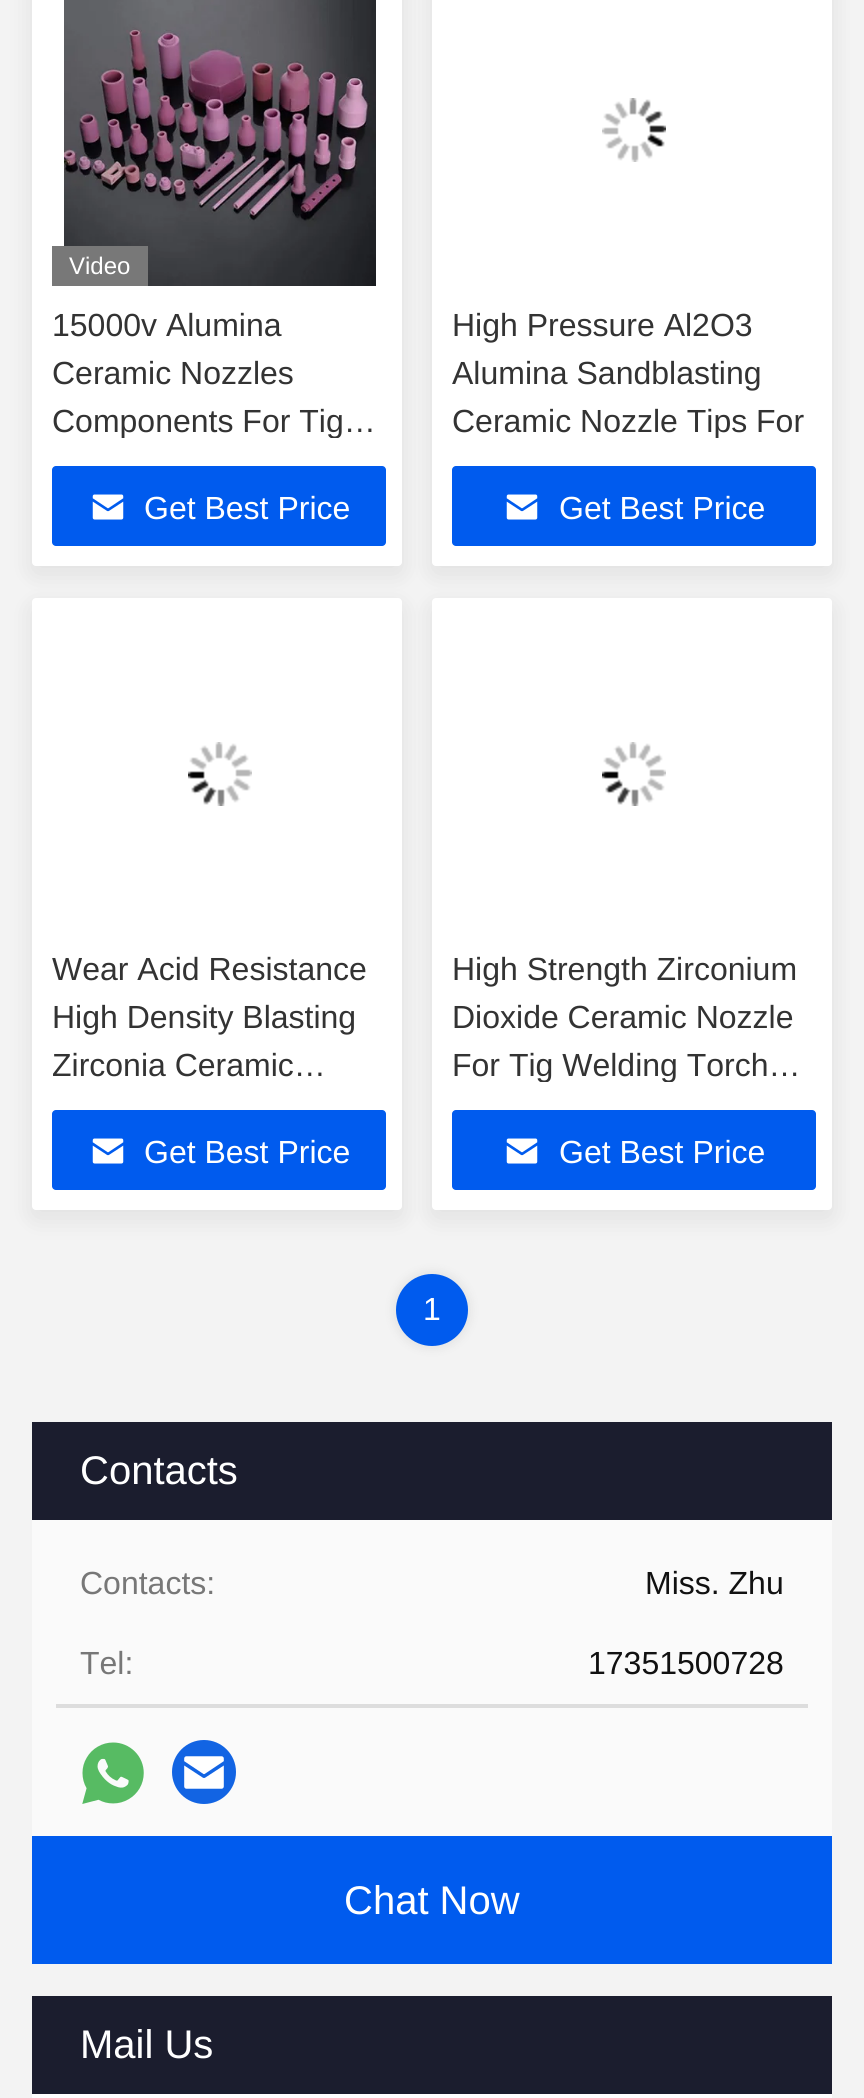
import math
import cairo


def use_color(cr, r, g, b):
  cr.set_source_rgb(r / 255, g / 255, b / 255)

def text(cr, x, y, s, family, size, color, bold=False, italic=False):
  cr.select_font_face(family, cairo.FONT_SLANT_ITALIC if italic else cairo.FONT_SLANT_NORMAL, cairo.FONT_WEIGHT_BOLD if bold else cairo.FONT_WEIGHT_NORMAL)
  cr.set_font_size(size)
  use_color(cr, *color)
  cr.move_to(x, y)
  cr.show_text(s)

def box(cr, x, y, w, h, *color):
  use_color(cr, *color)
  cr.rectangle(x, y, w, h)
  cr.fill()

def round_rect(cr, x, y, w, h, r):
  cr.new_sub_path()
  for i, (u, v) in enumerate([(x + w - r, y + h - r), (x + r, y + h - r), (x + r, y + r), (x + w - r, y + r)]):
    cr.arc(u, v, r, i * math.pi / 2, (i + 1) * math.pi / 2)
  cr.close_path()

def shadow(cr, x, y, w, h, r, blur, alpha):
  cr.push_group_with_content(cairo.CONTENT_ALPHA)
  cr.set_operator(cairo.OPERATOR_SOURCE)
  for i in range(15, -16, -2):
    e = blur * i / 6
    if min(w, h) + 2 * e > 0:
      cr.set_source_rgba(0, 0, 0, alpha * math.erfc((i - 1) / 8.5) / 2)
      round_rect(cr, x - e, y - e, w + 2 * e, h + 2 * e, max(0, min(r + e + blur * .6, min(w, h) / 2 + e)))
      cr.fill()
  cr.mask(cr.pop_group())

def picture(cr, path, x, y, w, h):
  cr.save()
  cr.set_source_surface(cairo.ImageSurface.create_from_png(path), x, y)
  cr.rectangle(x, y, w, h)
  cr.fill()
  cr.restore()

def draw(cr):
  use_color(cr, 243, 243, 243)
  cr.paint()
  use_color(cr, 0, 0, 0)
  shadow(cr, 32, -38, 370, 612, 4, 12, 0.08)
  use_color(cr, 255, 255, 255)
  round_rect(cr, 32, -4, 370, 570, 4)
  cr.fill()
  picture(cr, "img_01.png", 64, 0, 312, 286)
  box(cr, 52, 246, 96, 40, 120, 120, 120)
  use_color(cr, 0, 91, 238)
  round_rect(cr, 52, 466, 334, 80, 4)
  cr.fill()
  picture(cr, "img_02.png", 92, 494, 32, 26)
  use_color(cr, 0, 0, 0)
  shadow(cr, 432, -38, 400, 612, 4, 12, 0.08)
  use_color(cr, 255, 255, 255)
  round_rect(cr, 432, -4, 400, 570, 4)
  cr.fill()
  picture(cr, "img_03.png", 602, 98, 64, 64)
  use_color(cr, 0, 91, 238)
  round_rect(cr, 452, 466, 364, 80, 4)
  cr.fill()
  picture(cr, "img_02.png", 506, 494, 32, 26)
  use_color(cr, 0, 0, 0)
  shadow(cr, 32, 606, 370, 612, 4, 12, 0.08)
  use_color(cr, 255, 255, 255)
  round_rect(cr, 32, 598, 370, 612, 4)
  cr.fill()
  picture(cr, "img_04.png", 188, 742, 64, 64)
  use_color(cr, 0, 91, 238)
  round_rect(cr, 52, 1110, 334, 80, 4)
  cr.fill()
  picture(cr, "img_02.png", 92, 1138, 32, 26)
  use_color(cr, 0, 0, 0)
  shadow(cr, 432, 606, 400, 612, 4, 12, 0.08)
  use_color(cr, 255, 255, 255)
  round_rect(cr, 432, 598, 400, 612, 4)
  cr.fill()
  picture(cr, "img_04.png", 602, 742, 64, 64)
  use_color(cr, 0, 91, 238)
  round_rect(cr, 452, 1110, 364, 80, 4)
  cr.fill()
  picture(cr, "img_02.png", 506, 1138, 32, 26)
  use_color(cr, 0, 0, 0)
  shadow(cr, 396, 1274, 72, 72, 36, 6, 0.1)
  use_color(cr, 0, 91, 238)
  cr.arc(432, 1310, 36, 0, 2 * math.pi)
  cr.fill()
  box(cr, 32, 1422, 800, 98, 27, 29, 46)
  box(cr, 32, 1520, 800, 316, 250, 250, 250)
  box(cr, 56, 1704, 752, 4, 221, 221, 221)
  picture(cr, "img_05.png", 82, 1742, 62, 62)
  use_color(cr, 18, 100, 227)
  cr.arc(204, 1772, 32, 0, 2 * math.pi)
  cr.fill()
  picture(cr, "img_06.png", 184, 1756, 40, 33)
  box(cr, 32, 1836, 800, 128, 0, 91, 238)
  box(cr, 32, 1996, 800, 98, 27, 29, 46)
  box(cr, 32, 2094, 800, 4, 255, 255, 255)
  text(cr, 69, 274, "Video", "Liberation Sans", 24, (255, 255, 255))
  text(cr, 52, 336, "15000v Alumina", "Liberation Sans", 32, (51, 51, 51))
  text(cr, 52, 384, "Ceramic Nozzles", "Liberation Sans", 32, (51, 51, 51))
  cr.save()
  cr.rectangle(52, 302, 334, 136)
  cr.clip()
  text(cr, 52, 432, "Components For Tig…", "Liberation Sans", 32, (51, 51, 51))
  cr.restore()
  text(cr, 144, 519, "Get Best Price", "Liberation Sans", 32, (255, 255, 255))
  text(cr, 452, 336, "High Pressure Al2O3", "Liberation Sans", 32, (51, 51, 51))
  text(cr, 452, 384, "Alumina Sandblasting", "Liberation Sans", 32, (51, 51, 51))
  cr.save()
  cr.rectangle(452, 302, 364, 136)
  cr.clip()
  text(cr, 452, 432, "Ceramic Nozzle Tips For", "Liberation Sans", 32, (51, 51, 51))
  cr.restore()
  text(cr, 559, 519, "Get Best Price", "Liberation Sans", 32, (255, 255, 255))
  text(cr, 52, 980, "Wear Acid Resistance", "Liberation Sans", 32, (51, 51, 51))
  text(cr, 52, 1028, "High Density Blasting", "Liberation Sans", 32, (51, 51, 51))
  text(cr, 52, 1076, "Zirconia Ceramic…", "Liberation Sans", 32, (51, 51, 51))
  text(cr, 144, 1163, "Get Best Price", "Liberation Sans", 32, (255, 255, 255))
  text(cr, 452, 980, "High Strength Zirconium", "Liberation Sans", 32, (51, 51, 51))
  text(cr, 452, 1028, "Dioxide Ceramic Nozzle", "Liberation Sans", 32, (51, 51, 51))
  cr.save()
  cr.rectangle(452, 946, 364, 136)
  cr.clip()
  text(cr, 452, 1076, "For Tig Welding Torch…", "Liberation Sans", 32, (51, 51, 51))
  cr.restore()
  text(cr, 559, 1163, "Get Best Price", "Liberation Sans", 32, (255, 255, 255))
  text(cr, 423, 1320, "1", "Liberation Sans", 32, (255, 255, 255))
  text(cr, 80, 1484, "Contacts", "Liberation Sans", 40, (255, 255, 255))
  text(cr, 80, 1594, "Contacts:", "Liberation Sans", 32, (119, 119, 119))
  text(cr, 645, 1594, "Miss. Zhu", "Liberation Sans", 32, (17, 17, 17))
  text(cr, 80, 1674, "Tel:", "Liberation Sans", 32, (119, 119, 119))
  text(cr, 588, 1674, "17351500728", "Liberation Sans", 32, (17, 17, 17))
  text(cr, 344, 1914, "Chat Now", "Liberation Sans", 40, (255, 255, 255))
  text(cr, 80, 2058, "Mail Us", "Liberation Sans", 40, (255, 255, 255))


surface = cairo.ImageSurface(cairo.FORMAT_RGB24, 864, 2098)
cr = cairo.Context(surface)
options = cairo.FontOptions()
options.set_hint_metrics(cairo.HINT_METRICS_OFF)
options.set_hint_style(cairo.HINT_STYLE_NONE)
cr.set_font_options(options)
cr.set_miter_limit(4)
draw(cr)
surface.write_to_png("out.png")
